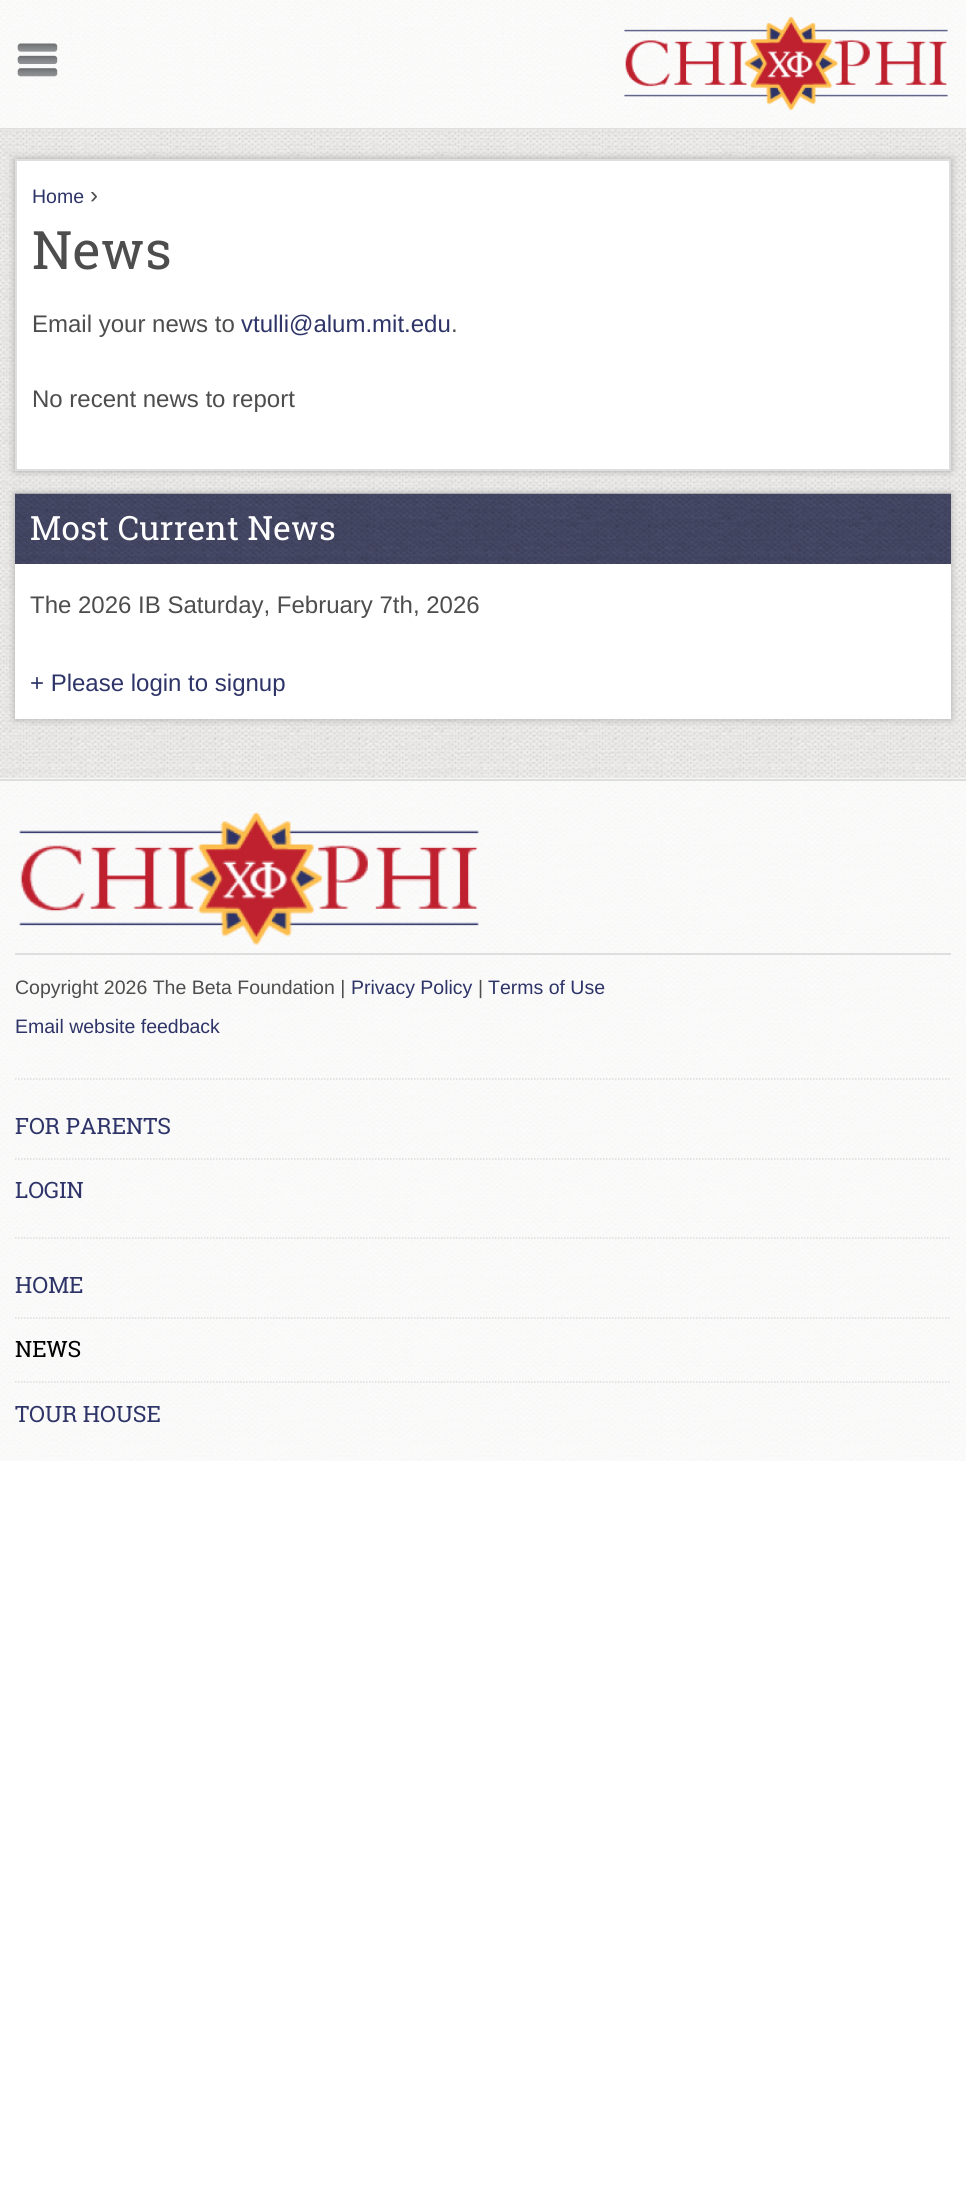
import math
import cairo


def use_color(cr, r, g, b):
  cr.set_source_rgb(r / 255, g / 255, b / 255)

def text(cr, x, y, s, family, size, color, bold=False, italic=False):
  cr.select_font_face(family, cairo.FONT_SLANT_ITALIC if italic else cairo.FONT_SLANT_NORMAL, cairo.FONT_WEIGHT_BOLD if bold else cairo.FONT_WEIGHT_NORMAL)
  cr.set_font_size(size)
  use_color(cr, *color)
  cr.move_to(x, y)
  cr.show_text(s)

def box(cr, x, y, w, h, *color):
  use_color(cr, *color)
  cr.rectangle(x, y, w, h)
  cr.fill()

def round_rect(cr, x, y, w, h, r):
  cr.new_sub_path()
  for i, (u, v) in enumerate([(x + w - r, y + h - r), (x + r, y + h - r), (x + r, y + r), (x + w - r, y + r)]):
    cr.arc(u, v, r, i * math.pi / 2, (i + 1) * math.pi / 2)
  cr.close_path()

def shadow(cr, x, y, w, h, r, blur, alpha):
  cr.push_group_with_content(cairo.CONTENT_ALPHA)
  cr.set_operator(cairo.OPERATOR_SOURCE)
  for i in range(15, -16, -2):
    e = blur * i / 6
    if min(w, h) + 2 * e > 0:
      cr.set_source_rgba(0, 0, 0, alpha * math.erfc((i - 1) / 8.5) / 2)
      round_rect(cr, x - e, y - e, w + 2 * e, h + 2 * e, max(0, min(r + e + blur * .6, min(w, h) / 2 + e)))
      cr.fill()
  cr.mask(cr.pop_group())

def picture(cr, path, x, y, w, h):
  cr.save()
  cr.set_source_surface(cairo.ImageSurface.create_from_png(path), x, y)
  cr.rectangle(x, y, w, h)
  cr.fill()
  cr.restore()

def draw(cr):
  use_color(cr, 255, 255, 255)
  cr.paint()
  picture(cr, "img_01.png", 0, 0, 966, 128)
  box(cr, 0, 128, 966, 1, 222, 222, 222)
  picture(cr, "img_02.png", 17, 43, 41, 34)
  picture(cr, "img_03.png", 624, 16, 324, 95)
  picture(cr, "img_04.png", 0, 129, 966, 650)
  use_color(cr, 170, 170, 170)
  shadow(cr, 15, 159, 936, 312, 0, 4, 1)
  use_color(cr, 255, 255, 255)
  cr.rectangle(16, 160, 934, 310)
  cr.fill_preserve()
  use_color(cr, 222, 222, 222)
  cr.stroke()
  use_color(cr, 170, 170, 170)
  shadow(cr, 15, 494, 936, 225, 0, 4, 1)
  box(cr, 15, 564, 936, 155, 255, 255, 255)
  picture(cr, "img_05.png", 15, 493, 936, 71)
  picture(cr, "img_06.png", 0, 778, 966, 683)
  box(cr, 0, 779, 966, 2, 222, 222, 222)
  picture(cr, "img_07.png", 19, 811, 460, 135)
  box(cr, 15, 953, 936, 2, 222, 222, 222)
  cr.new_path()
  cr.move_to(15, 1079)
  cr.line_to(951, 1079)
  use_color(cr, 221, 221, 221)
  cr.set_line_width(1.5)
  cr.set_dash([1.5, 1.5])
  cr.stroke()
  cr.new_path()
  cr.move_to(15, 1159)
  cr.line_to(951, 1159)
  cr.stroke()
  cr.new_path()
  cr.move_to(15, 1238)
  cr.line_to(951, 1238)
  cr.stroke()
  cr.new_path()
  cr.move_to(15, 1318)
  cr.line_to(951, 1318)
  cr.stroke()
  cr.new_path()
  cr.move_to(15, 1382)
  cr.line_to(951, 1382)
  cr.stroke()
  text(cr, 32, 203, "Home", "Liberation Sans", 19.5, (46, 52, 104))
  text(cr, 90, 203, "›", "Liberation Sans", 24, (77, 77, 77))
  text(cr, 32, 269, "News", "Roboto Slab", 53, (77, 77, 77))
  text(cr, 32, 332, "Email your news to", "Liberation Sans", 24, (77, 77, 77))
  text(cr, 241, 332, "vtulli@alum.mit.edu", "Liberation Sans", 24, (46, 52, 104))
  text(cr, 451, 332, ".", "Liberation Sans", 24, (77, 77, 77))
  text(cr, 32, 407, "No recent news to report", "Liberation Sans", 24, (77, 77, 77))
  text(cr, 30, 540, "Most Current News", "Roboto Slab", 33.5, (255, 255, 255))
  text(cr, 30, 613, "The 2026 IB Saturday, February 7th, 2026", "Liberation Sans", 24, (77, 77, 77))
  text(cr, 30, 691, "+ Please login to signup", "Liberation Sans", 24, (46, 52, 104))
  text(cr, 15, 994, "Copyright 2026 The Beta Foundation |", "Liberation Sans", 19.5, (77, 77, 77))
  text(cr, 351, 994, "Privacy Policy", "Liberation Sans", 19.5, (46, 52, 104))
  text(cr, 478, 994, "|", "Liberation Sans", 19.5, (77, 77, 77))
  text(cr, 488, 994, "Terms of Use", "Liberation Sans", 19.5, (46, 52, 104))
  text(cr, 15, 1033, "Email website feedback", "Liberation Sans", 19.5, (46, 52, 104))
  text(cr, 15, 1134, "FOR PARENTS", "Roboto Slab", 22.5, (46, 52, 104))
  text(cr, 15, 1198, "LOGIN", "Roboto Slab", 22.5, (46, 52, 104))
  text(cr, 15, 1293, "HOME", "Roboto Slab", 22.5, (46, 52, 104))
  text(cr, 15, 1357, "NEWS", "Roboto Slab", 22.5, (0, 0, 0))
  text(cr, 15, 1422, "TOUR HOUSE", "Roboto Slab", 22.5, (46, 52, 104))


surface = cairo.ImageSurface(cairo.FORMAT_RGB24, 966, 2197)
cr = cairo.Context(surface)
options = cairo.FontOptions()
options.set_hint_metrics(cairo.HINT_METRICS_OFF)
options.set_hint_style(cairo.HINT_STYLE_NONE)
cr.set_font_options(options)
cr.set_miter_limit(4)
draw(cr)
surface.write_to_png("out.png")
